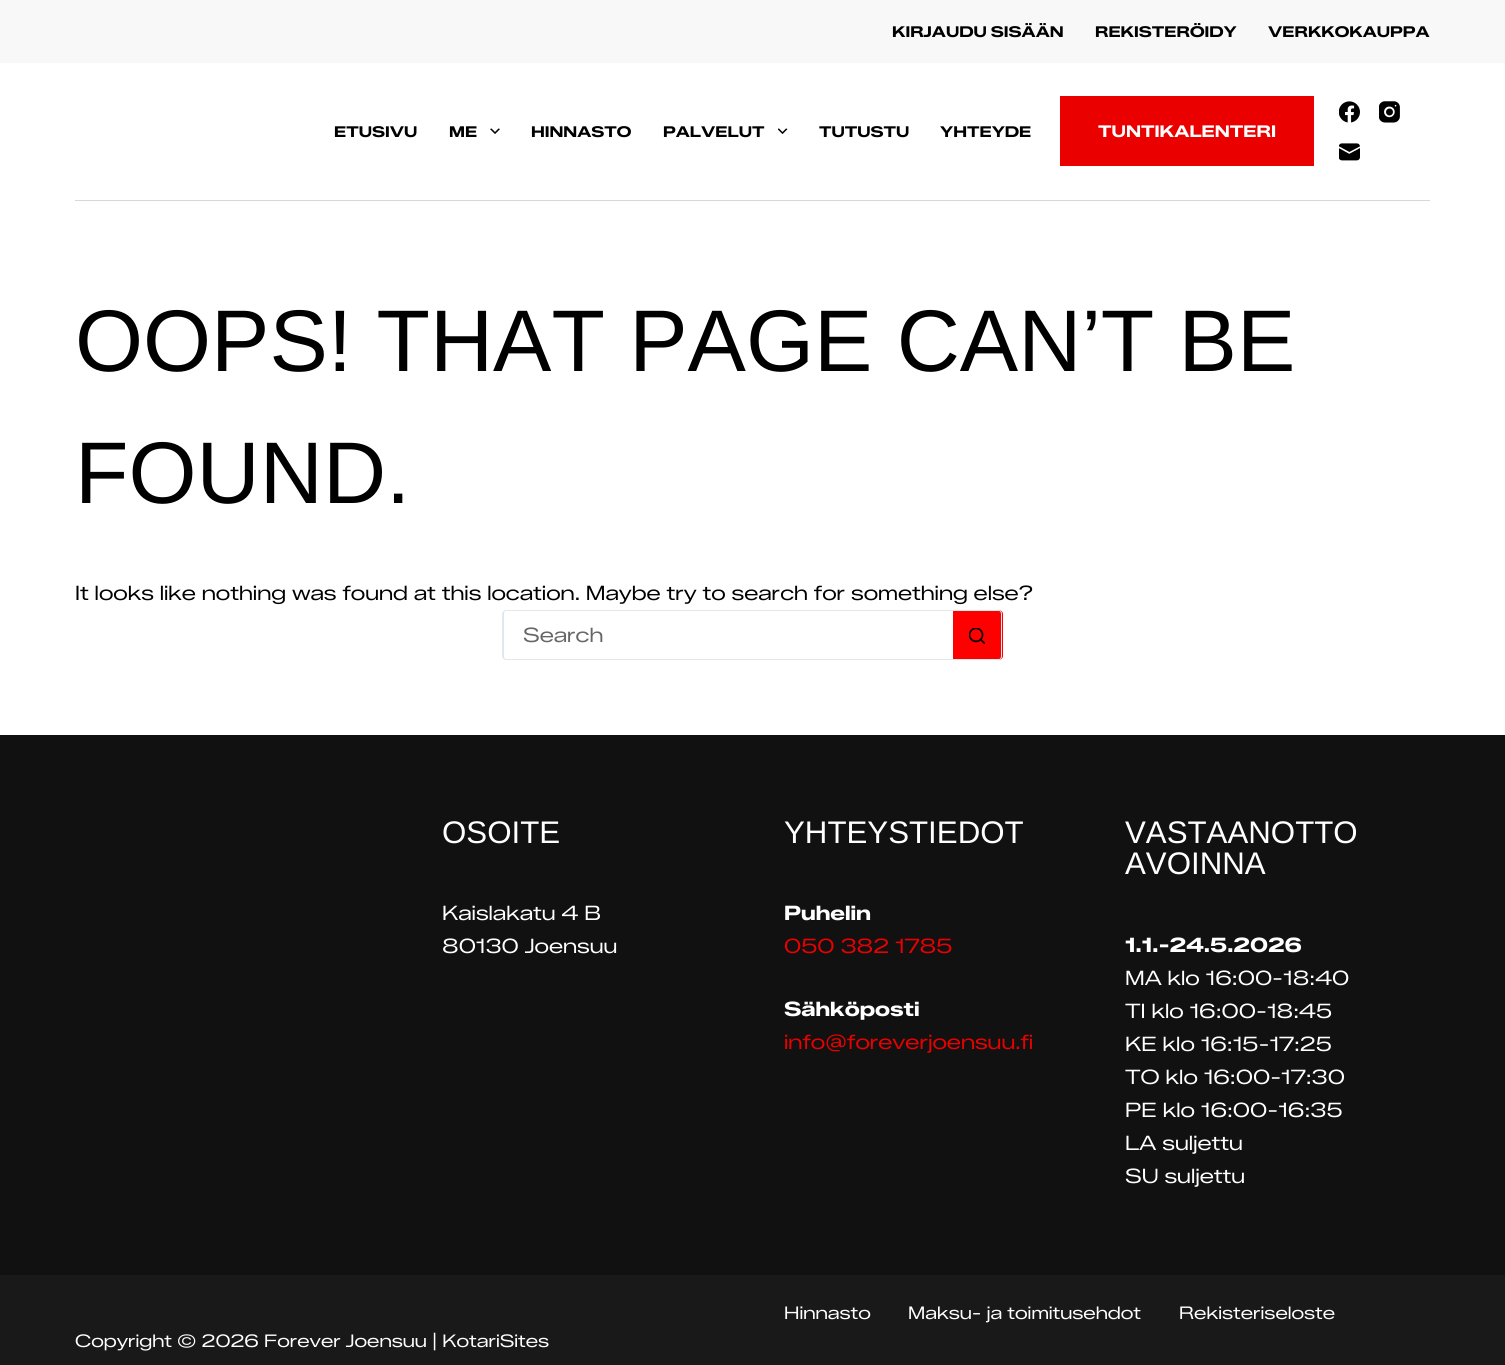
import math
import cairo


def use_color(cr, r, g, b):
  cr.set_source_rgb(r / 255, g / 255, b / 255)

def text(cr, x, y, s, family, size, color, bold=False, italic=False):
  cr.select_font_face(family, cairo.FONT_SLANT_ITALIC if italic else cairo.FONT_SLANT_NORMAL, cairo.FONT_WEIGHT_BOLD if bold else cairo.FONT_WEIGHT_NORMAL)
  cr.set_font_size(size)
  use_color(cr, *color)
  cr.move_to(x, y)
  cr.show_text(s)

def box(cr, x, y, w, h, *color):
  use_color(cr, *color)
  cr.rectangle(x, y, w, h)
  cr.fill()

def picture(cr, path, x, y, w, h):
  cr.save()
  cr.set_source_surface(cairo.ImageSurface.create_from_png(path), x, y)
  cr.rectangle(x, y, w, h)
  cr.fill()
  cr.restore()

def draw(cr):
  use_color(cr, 255, 255, 255)
  cr.paint()
  box(cr, 0, 0, 1505, 63, 248, 248, 248)
  box(cr, 75, 200, 1355, 1, 213, 216, 220)
  picture(cr, "img_01.png", 490, 128, 10, 6)
  picture(cr, "img_02.png", 778, 128, 10, 6)
  box(cr, 1060, 96, 254, 70, 235, 0, 0)
  picture(cr, "img_03.png", 1339, 101, 21, 22)
  picture(cr, "img_04.png", 1379, 101, 21, 22)
  picture(cr, "img_05.png", 1339, 143, 21, 18)
  use_color(cr, 225, 232, 237)
  cr.set_fill_rule(cairo.FILL_RULE_EVEN_ODD)
  cr.new_path()
  cr.move_to(506, 610)
  cr.line_to(952, 610)
  cr.line_to(952, 660)
  cr.line_to(506, 660)
  cr.curve_to(504, 660, 502, 658, 502, 656)
  cr.line_to(502, 614)
  cr.curve_to(502, 612, 504, 610, 506, 610)
  cr.close_path()
  cr.move_to(506, 611)
  cr.line_to(952, 611)
  cr.line_to(952, 659)
  cr.line_to(506, 659)
  cr.curve_to(505, 659, 504, 658, 504, 656)
  cr.line_to(504, 614)
  cr.curve_to(504, 612, 505, 611, 506, 611)
  cr.close_path()
  cr.fill()
  use_color(cr, 255, 0, 0)
  cr.new_path()
  cr.move_to(953, 610)
  cr.line_to(999, 610)
  cr.curve_to(1001, 610, 1003, 612, 1003, 614)
  cr.line_to(1003, 656)
  cr.curve_to(1003, 658, 1001, 660, 999, 660)
  cr.line_to(953, 660)
  cr.close_path()
  cr.fill()
  use_color(cr, 225, 232, 237)
  cr.new_path()
  cr.move_to(952, 610)
  cr.line_to(999, 610)
  cr.curve_to(1001, 610, 1002, 612, 1002, 614)
  cr.line_to(1002, 656)
  cr.curve_to(1002, 658, 1001, 660, 999, 660)
  cr.line_to(952, 660)
  cr.close_path()
  cr.move_to(952, 611)
  cr.line_to(999, 611)
  cr.curve_to(1000, 611, 1001, 612, 1001, 614)
  cr.line_to(1001, 656)
  cr.curve_to(1001, 658, 1000, 659, 999, 659)
  cr.line_to(952, 659)
  cr.close_path()
  cr.fill()
  picture(cr, "img_06.png", 969, 628, 16, 16)
  box(cr, 0, 735, 1505, 540, 17, 17, 17)
  box(cr, 0, 1275, 1505, 90, 25, 25, 25)
  text(cr, 892, 37, "KIRJAUDU SISÄÄN", "Zalando Sans Expanded", 15, (0, 0, 0), bold=True)
  text(cr, 1095, 37, "REKISTERÖIDY", "Zalando Sans Expanded", 15, (0, 0, 0), bold=True)
  text(cr, 1268, 37, "VERKKOKAUPPA", "Zalando Sans Expanded", 15, (0, 0, 0), bold=True)
  text(cr, 334, 137, "ETUSIVU", "Zalando Sans Expanded", 15, (0, 0, 0), bold=True)
  text(cr, 449, 137, "ME", "Zalando Sans Expanded", 15, (0, 0, 0), bold=True)
  text(cr, 531, 137, "HINNASTO", "Zalando Sans Expanded", 15, (0, 0, 0), bold=True)
  text(cr, 663, 137, "PALVELUT", "Zalando Sans Expanded", 15, (0, 0, 0), bold=True)
  text(cr, 819, 137, "TUTUSTU", "Zalando Sans Expanded", 15, (0, 0, 0), bold=True)
  text(cr, 940, 137, "YHTEYDE", "Zalando Sans Expanded", 15, (0, 0, 0), bold=True)
  text(cr, 1098, 137, "TUNTIKALENTERI", "Zalando Sans Expanded", 16.25, (255, 255, 255), bold=True)
  text(cr, 75, 371, "OOPS! THAT PAGE CAN’T BE", "Liberation Sans", 87.5, (0, 0, 0))
  text(cr, 75, 503, "FOUND.", "Liberation Sans", 87.5, (0, 0, 0))
  text(cr, 75, 600, "It looks like nothing was found at this location. Maybe try to search for something else?", "Zalando Sans Expanded", 20, (0, 0, 0))
  text(cr, 523, 642, "Search", "Zalando Sans Expanded", 20, (102, 102, 102))
  text(cr, 442, 843, "OSOITE", "Liberation Sans", 31.25, (255, 255, 255))
  text(cr, 442, 920, "Kaislakatu 4 B", "Zalando Sans Expanded", 20, (255, 255, 255))
  text(cr, 442, 953, "80130 Joensuu", "Zalando Sans Expanded", 20, (255, 255, 255))
  text(cr, 784, 843, "YHTEYSTIEDOT", "Liberation Sans", 31.25, (255, 255, 255))
  text(cr, 784, 920, "Puhelin", "Zalando Sans Expanded", 20, (255, 255, 255), bold=True)
  text(cr, 784, 953, "050 382 1785", "Zalando Sans Expanded", 20, (235, 0, 0))
  text(cr, 784, 1016, "Sähköposti", "Zalando Sans Expanded", 20, (255, 255, 255), bold=True)
  text(cr, 784, 1049, "info@foreverjoensuu.fi", "Zalando Sans Expanded", 20, (235, 0, 0))
  text(cr, 1125, 843, "VASTAANOTTO", "Liberation Sans", 31.25, (255, 255, 255))
  text(cr, 1125, 874, "AVOINNA", "Liberation Sans", 31.25, (255, 255, 255))
  text(cr, 1125, 952, "1.1.-24.5.2026", "Zalando Sans Expanded", 20, (255, 255, 255), bold=True)
  text(cr, 1125, 985, "MA klo 16:00-18:40", "Zalando Sans Expanded", 20, (255, 255, 255))
  text(cr, 1125, 1018, "TI klo 16:00-18:45", "Zalando Sans Expanded", 20, (255, 255, 255))
  text(cr, 1125, 1051, "KE klo 16:15-17:25", "Zalando Sans Expanded", 20, (255, 255, 255))
  text(cr, 1125, 1084, "TO klo 16:00-17:30", "Zalando Sans Expanded", 20, (255, 255, 255))
  text(cr, 1125, 1117, "PE klo 16:00-16:35", "Zalando Sans Expanded", 20, (255, 255, 255))
  text(cr, 1125, 1150, "LA suljettu", "Zalando Sans Expanded", 20, (255, 255, 255))
  text(cr, 1125, 1183, "SU suljettu", "Zalando Sans Expanded", 20, (255, 255, 255))
  text(cr, 784, 1319, "Hinnasto", "Zalando Sans Expanded", 17.5, (255, 255, 255))
  text(cr, 908, 1319, "Maksu- ja toimitusehdot", "Zalando Sans Expanded", 17.5, (255, 255, 255))
  text(cr, 1179, 1319, "Rekisteriseloste", "Zalando Sans Expanded", 17.5, (255, 255, 255))
  text(cr, 75, 1347, "Copyright © 2026 Forever Joensuu | KotariSites", "Zalando Sans Expanded", 17.5, (255, 255, 255))


surface = cairo.ImageSurface(cairo.FORMAT_RGB24, 1505, 1365)
cr = cairo.Context(surface)
options = cairo.FontOptions()
options.set_hint_metrics(cairo.HINT_METRICS_OFF)
options.set_hint_style(cairo.HINT_STYLE_NONE)
cr.set_font_options(options)
cr.set_miter_limit(4)
draw(cr)
surface.write_to_png("out.png")
